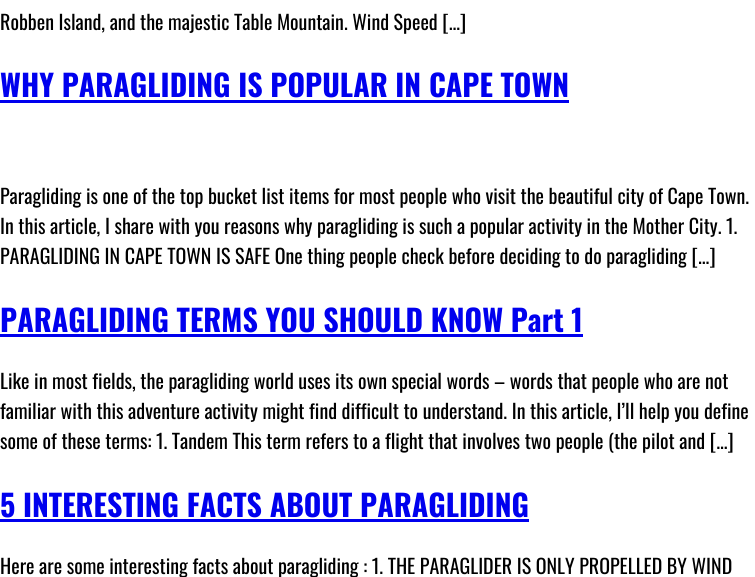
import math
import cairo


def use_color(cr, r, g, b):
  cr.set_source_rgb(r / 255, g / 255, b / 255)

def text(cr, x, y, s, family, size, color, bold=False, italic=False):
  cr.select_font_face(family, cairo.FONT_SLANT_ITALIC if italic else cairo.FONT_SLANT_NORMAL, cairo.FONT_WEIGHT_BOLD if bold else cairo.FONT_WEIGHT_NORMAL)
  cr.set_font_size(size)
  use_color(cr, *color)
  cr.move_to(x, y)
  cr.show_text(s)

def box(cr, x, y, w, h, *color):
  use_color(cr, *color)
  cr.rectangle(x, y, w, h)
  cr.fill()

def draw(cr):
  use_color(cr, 255, 255, 255)
  cr.paint()
  box(cr, 0, 100, 569, 3, 0, 0, 238)
  box(cr, 0, 334, 583, 3, 0, 0, 238)
  box(cr, 0, 519, 529, 3, 0, 0, 238)
  text(cr, 0, 30, "Robben Island, and the majestic Table Mountain. Wind Speed […]", "Oswald", 20, (0, 0, 0))
  text(cr, 0, 97, "WHY PARAGLIDING IS POPULAR IN CAPE TOWN", "Oswald", 30, (0, 0, 238), bold=True)
  text(cr, 0, 204, "Paragliding is one of the top bucket list items for most people who visit the beautiful city of Cape Town.", "Oswald", 20, (0, 0, 0))
  text(cr, 0, 234, "In this article, I share with you reasons why paragliding is such a popular activity in the Mother City. 1.", "Oswald", 20, (0, 0, 0))
  text(cr, 0, 264, "PARAGLIDING IN CAPE TOWN IS SAFE One thing people check before deciding to do paragliding […]", "Oswald", 20, (0, 0, 0))
  text(cr, 0, 332, "PARAGLIDING TERMS YOU SHOULD KNOW Part 1", "Oswald", 30, (0, 0, 238), bold=True)
  text(cr, 0, 389, "Like in most fields, the paragliding world uses its own special words – words that people who are not", "Oswald", 20, (0, 0, 0))
  text(cr, 0, 419, "familiar with this adventure activity might find difficult to understand. In this article, I’ll help you define", "Oswald", 20, (0, 0, 0))
  text(cr, 0, 449, "some of these terms: 1. Tandem This term refers to a flight that involves two people (the pilot and […]", "Oswald", 20, (0, 0, 0))
  text(cr, 0, 517, "5 INTERESTING FACTS ABOUT PARAGLIDING", "Oswald", 30, (0, 0, 238), bold=True)
  text(cr, 0, 574, "Here are some interesting facts about paragliding : 1. THE PARAGLIDER IS ONLY PROPELLED BY WIND", "Oswald", 20, (0, 0, 0))


surface = cairo.ImageSurface(cairo.FORMAT_RGB24, 755, 577)
cr = cairo.Context(surface)
options = cairo.FontOptions()
options.set_hint_metrics(cairo.HINT_METRICS_OFF)
options.set_hint_style(cairo.HINT_STYLE_NONE)
cr.set_font_options(options)
cr.set_miter_limit(4)
draw(cr)
surface.write_to_png("out.png")
